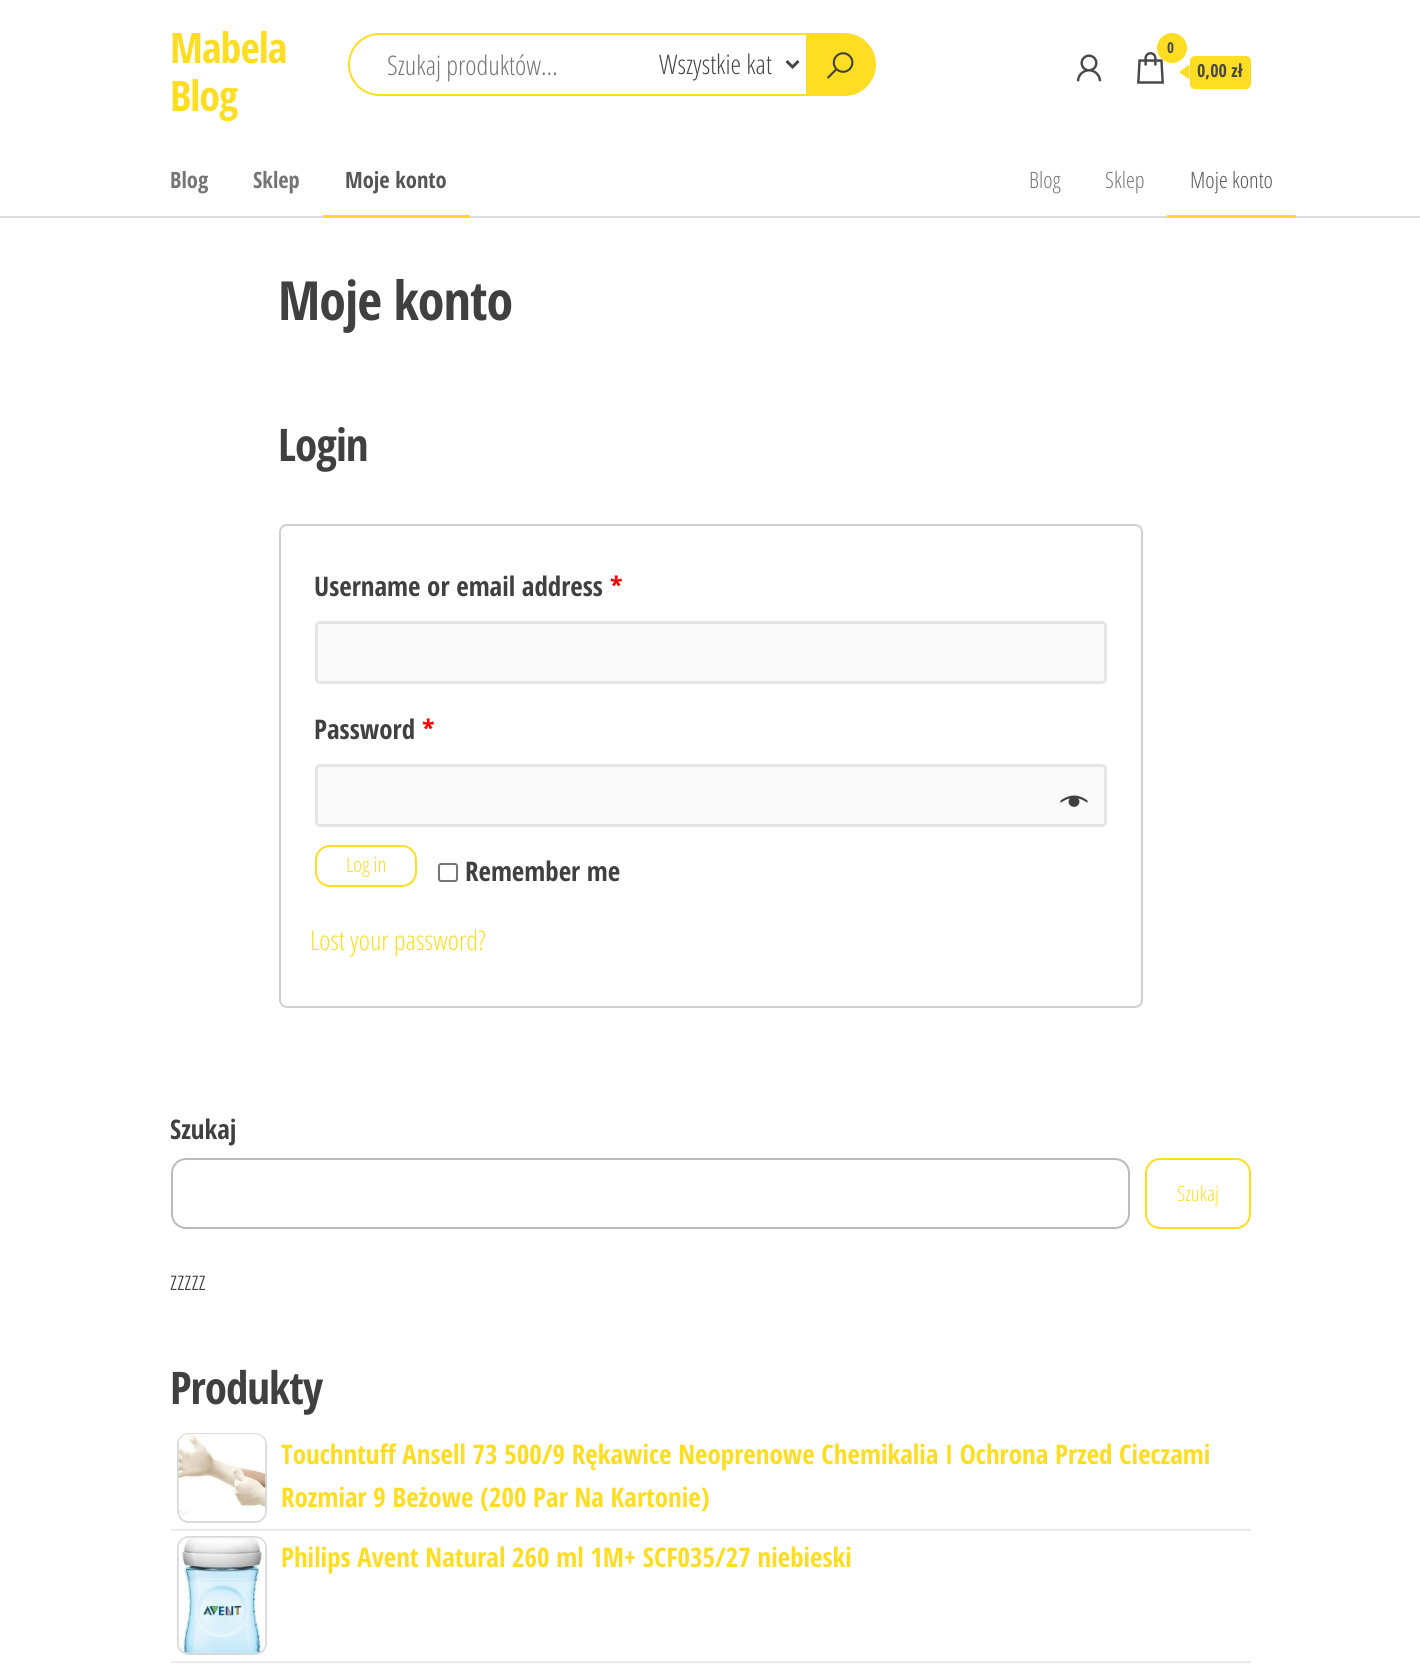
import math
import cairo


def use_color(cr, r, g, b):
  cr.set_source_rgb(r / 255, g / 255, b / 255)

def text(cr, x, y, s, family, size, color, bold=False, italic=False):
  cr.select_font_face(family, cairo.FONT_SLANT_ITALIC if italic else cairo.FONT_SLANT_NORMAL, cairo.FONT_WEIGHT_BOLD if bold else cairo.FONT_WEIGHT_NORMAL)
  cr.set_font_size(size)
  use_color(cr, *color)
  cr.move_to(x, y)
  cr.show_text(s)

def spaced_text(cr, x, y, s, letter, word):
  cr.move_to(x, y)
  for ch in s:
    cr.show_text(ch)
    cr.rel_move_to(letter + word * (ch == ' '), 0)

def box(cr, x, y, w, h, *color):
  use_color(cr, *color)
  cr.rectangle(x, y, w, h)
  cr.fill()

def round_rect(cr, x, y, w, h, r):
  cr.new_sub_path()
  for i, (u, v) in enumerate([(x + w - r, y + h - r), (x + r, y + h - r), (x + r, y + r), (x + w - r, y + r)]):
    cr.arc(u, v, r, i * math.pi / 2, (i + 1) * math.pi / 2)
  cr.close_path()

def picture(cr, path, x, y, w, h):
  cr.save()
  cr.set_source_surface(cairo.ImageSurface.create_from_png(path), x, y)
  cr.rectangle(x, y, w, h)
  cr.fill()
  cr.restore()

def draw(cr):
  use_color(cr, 255, 255, 255)
  cr.paint()
  round_rect(cr, 349, 34, 526, 61, 30.5)
  use_color(cr, 255, 221, 34)
  cr.stroke()
  cr.new_path()
  cr.move_to(786.5, 61)
  cr.line_to(792.5, 67)
  cr.line_to(798.5, 61)
  use_color(cr, 72, 72, 72)
  cr.set_line_width(3)
  cr.stroke()
  use_color(cr, 255, 221, 34)
  cr.new_path()
  cr.move_to(806, 35)
  cr.line_to(845, 35)
  cr.curve_to(861.5, 35, 875, 48.5, 875, 65)
  cr.curve_to(875, 81.5, 861.5, 95, 845, 95)
  cr.line_to(806, 95)
  cr.close_path()
  cr.fill()
  picture(cr, "img_01.png", 827, 52, 27, 27)
  picture(cr, "img_02.png", 1076, 54, 26, 28)
  picture(cr, "img_03.png", 1137, 52, 27, 32)
  cr.arc(1172, 48, 15, 0, 2 * math.pi)
  cr.fill()
  round_rect(cr, 1190, 56, 61, 33, 5)
  cr.fill()
  cr.new_path()
  cr.move_to(1189.5, 64.5)
  cr.line_to(1189.5, 79.5)
  cr.line_to(1179, 72)
  cr.close_path()
  cr.fill()
  box(cr, 0, 216, 1420, 2, 221, 221, 221)
  box(cr, 323, 215, 147, 3, 255, 221, 34)
  box(cr, 1167, 215, 129, 3, 255, 221, 34)
  round_rect(cr, 280, 525, 862, 482, 7)
  use_color(cr, 211, 206, 210)
  cr.set_line_width(2)
  cr.stroke()
  use_color(cr, 250, 250, 250)
  round_rect(cr, 316.5, 622.5, 789, 60, 3.5)
  cr.fill_preserve()
  use_color(cr, 229, 229, 229)
  cr.set_line_width(3)
  cr.stroke()
  use_color(cr, 250, 250, 250)
  round_rect(cr, 316.5, 765.5, 789, 60, 3.5)
  cr.fill_preserve()
  use_color(cr, 229, 229, 229)
  cr.stroke()
  picture(cr, "img_04.png", 1060, 795, 28, 12)
  round_rect(cr, 316, 846, 100, 40, 14)
  use_color(cr, 255, 221, 34)
  cr.set_line_width(2)
  cr.stroke()
  round_rect(cr, 439, 864, 18, 17, 2)
  use_color(cr, 118, 118, 118)
  cr.stroke()
  round_rect(cr, 172, 1159, 957, 69, 14)
  use_color(cr, 187, 187, 187)
  cr.stroke()
  round_rect(cr, 1146, 1159, 104, 69, 14)
  use_color(cr, 255, 221, 34)
  cr.stroke()
  box(cr, 171, 1529, 1080, 2, 235, 235, 235)
  round_rect(cr, 178, 1434, 88, 88, 11)
  use_color(cr, 217, 217, 217)
  cr.stroke()
  picture(cr, "img_05.png", 178, 1434, 88, 87)
  box(cr, 171, 1661, 1080, 2, 235, 235, 235)
  round_rect(cr, 178, 1537, 88, 117, 11)
  use_color(cr, 217, 217, 217)
  cr.stroke()
  picture(cr, "img_06.png", 178, 1537, 88, 116)
  cr.select_font_face("Open Sans Condensed", cairo.FONT_SLANT_NORMAL, cairo.FONT_WEIGHT_BOLD)
  cr.set_font_size(42)
  use_color(cr, 255, 221, 34)
  spaced_text(cr, 170, 63, "Mabela", -1, 0)
  spaced_text(cr, 170, 111, "Blog", -1, 0)
  text(cr, 387, 75, "Szukaj produktów...", "Open Sans Condensed Light", 27, (117, 117, 117))
  text(cr, 659, 74, "Wszystkie kat", "Open Sans Condensed Light", 27, (72, 72, 72))
  text(cr, 1167, 53, "0", "Open Sans Condensed", 15, (72, 72, 72), bold=True)
  text(cr, 1197, 77, "0,00 zł", "Open Sans Condensed", 18, (72, 72, 72), bold=True)
  text(cr, 170, 188, "Blog", "Open Sans Condensed", 22.5, (117, 117, 117), bold=True)
  text(cr, 253, 188, "Sklep", "Open Sans Condensed", 22.5, (117, 117, 117), bold=True)
  text(cr, 345, 188, "Moje konto", "Open Sans Condensed", 22.5, (85, 85, 85), bold=True)
  text(cr, 1029, 188, "Blog", "Open Sans Condensed Light", 22.5, (117, 117, 117))
  text(cr, 1105, 188, "Sklep", "Open Sans Condensed Light", 22.5, (117, 117, 117))
  text(cr, 1190, 188, "Moje konto", "Open Sans Condensed Light", 22.5, (85, 85, 85))
  cr.select_font_face("Open Sans Condensed", cairo.FONT_SLANT_NORMAL, cairo.FONT_WEIGHT_BOLD)
  cr.set_font_size(54)
  use_color(cr, 64, 64, 64)
  spaced_text(cr, 278, 320, "Moje konto", -1, 0)
  cr.set_font_size(45)
  spaced_text(cr, 278, 461, "Login", -1, 0)
  text(cr, 314, 596, "Username or email address", "Open Sans Condensed", 27, (64, 64, 64), bold=True)
  text(cr, 610, 596, "*", "Open Sans Condensed", 27, (255, 0, 0), bold=True)
  text(cr, 314, 739, "Password", "Open Sans Condensed", 27, (64, 64, 64), bold=True)
  text(cr, 422, 739, "*", "Open Sans Condensed", 27, (255, 0, 0), bold=True)
  text(cr, 346, 872, "Log in", "Open Sans Condensed Light", 21, (255, 221, 34))
  text(cr, 465, 881, "Remember me", "Open Sans Condensed", 27, (64, 64, 64), bold=True)
  text(cr, 310, 950, "Lost your password?", "Open Sans Condensed Light", 27, (255, 221, 34))
  text(cr, 170, 1139, "Szukaj", "Open Sans Condensed", 27, (64, 64, 64), bold=True)
  text(cr, 1177, 1201, "Szukaj", "Open Sans Condensed Light", 21, (255, 221, 34))
  text(cr, 170, 1290, "zzzzz", "Open Sans Condensed Light", 27, (64, 64, 64))
  cr.select_font_face("Open Sans Condensed", cairo.FONT_SLANT_NORMAL, cairo.FONT_WEIGHT_BOLD)
  cr.set_font_size(45)
  spaced_text(cr, 170, 1404, "Produkty", -1, 0)
  text(cr, 281, 1464, "Touchntuff Ansell 73 500/9 Rękawice Neoprenowe Chemikalia I Ochrona Przed Cieczami", "Open Sans Condensed", 27, (255, 221, 34), bold=True)
  text(cr, 281, 1507, "Rozmiar 9 Beżowe (200 Par Na Kartonie)", "Open Sans Condensed", 27, (255, 221, 34), bold=True)
  text(cr, 281, 1567, "Philips Avent Natural 260 ml 1M+ SCF035/27 niebieski", "Open Sans Condensed", 27, (255, 221, 34), bold=True)


surface = cairo.ImageSurface(cairo.FORMAT_RGB24, 1420, 1665)
cr = cairo.Context(surface)
options = cairo.FontOptions()
options.set_hint_metrics(cairo.HINT_METRICS_OFF)
options.set_hint_style(cairo.HINT_STYLE_NONE)
cr.set_font_options(options)
cr.set_miter_limit(4)
draw(cr)
surface.write_to_png("out.png")
